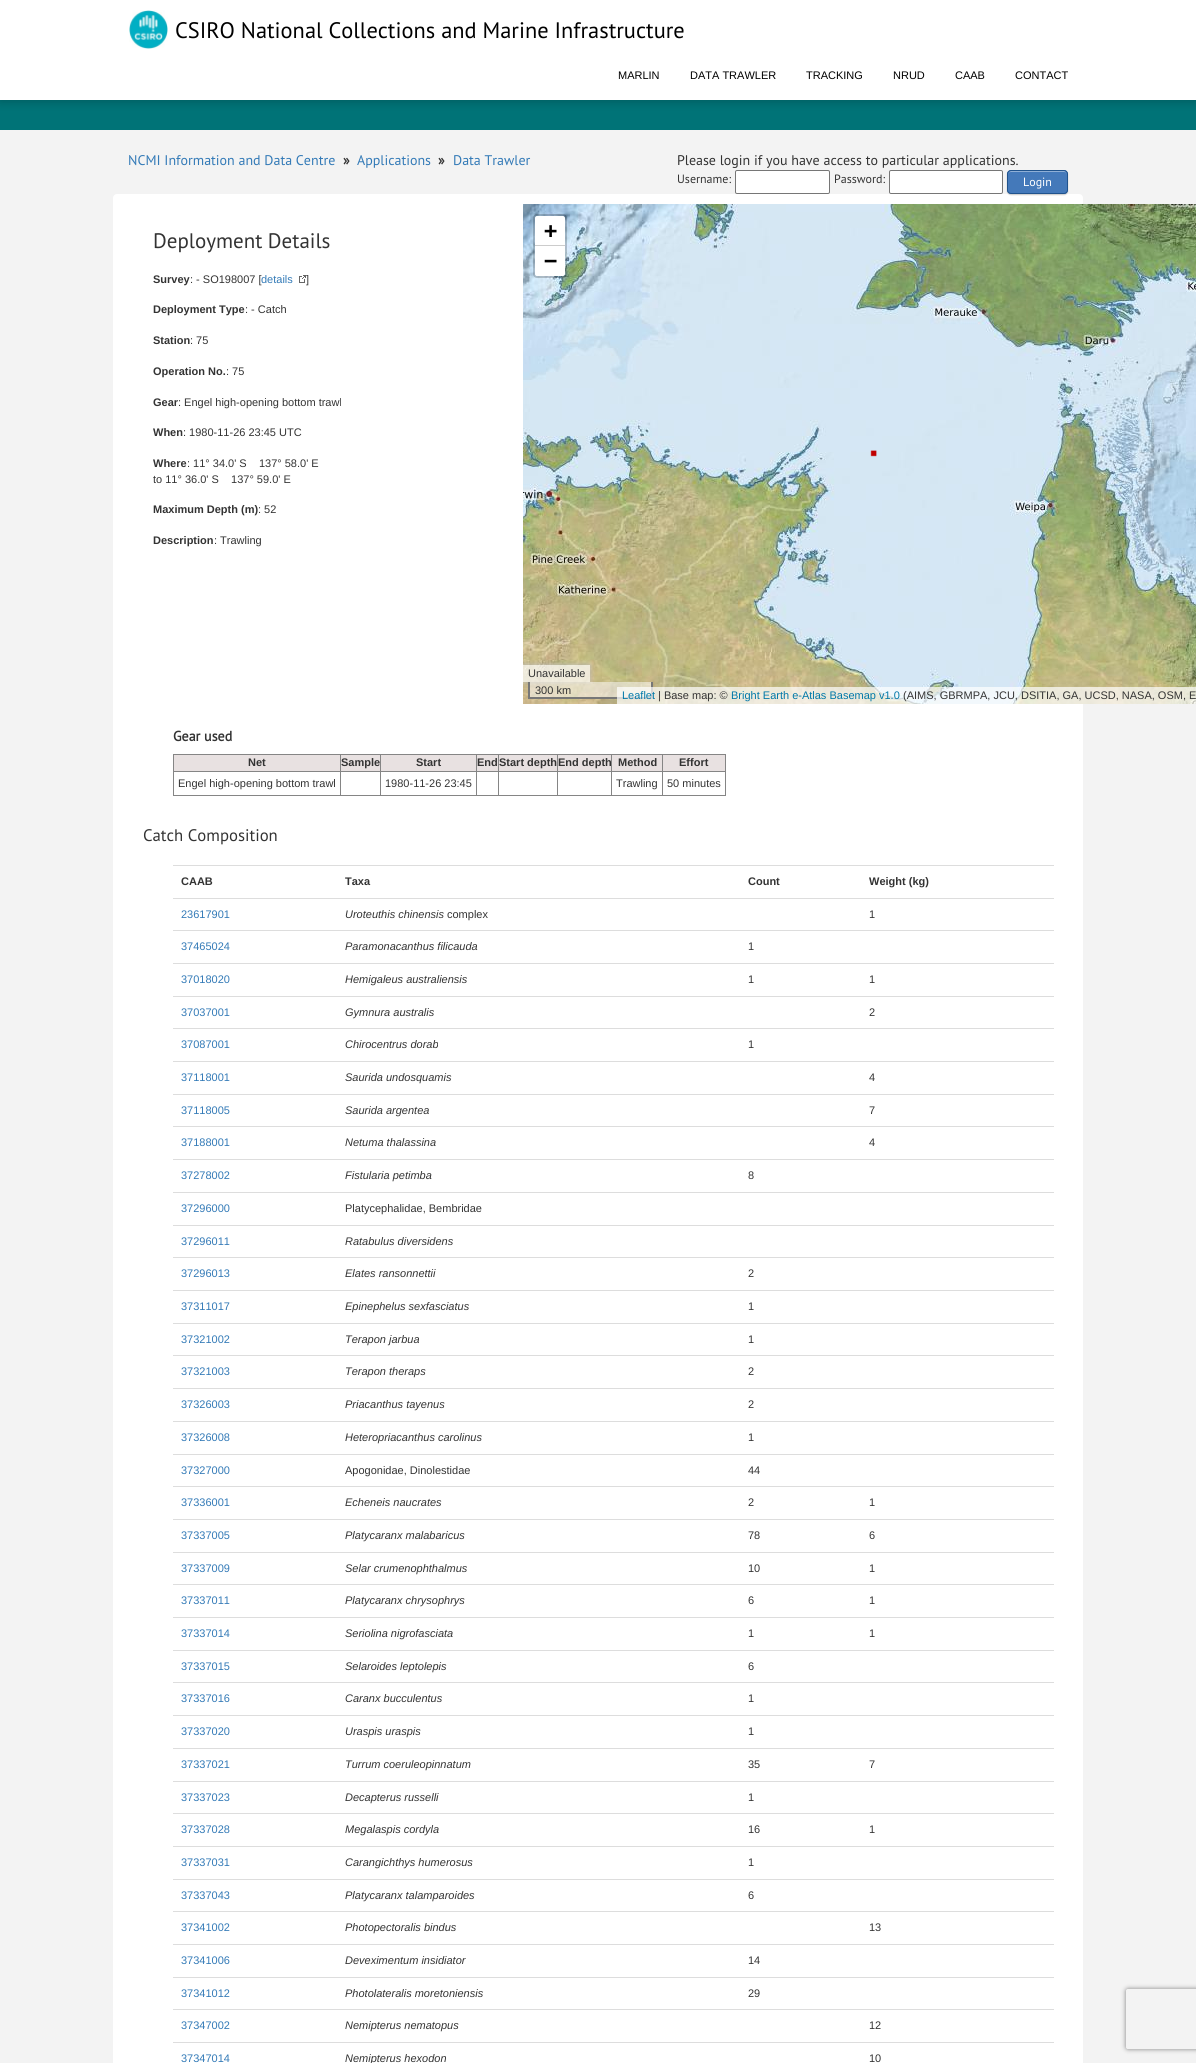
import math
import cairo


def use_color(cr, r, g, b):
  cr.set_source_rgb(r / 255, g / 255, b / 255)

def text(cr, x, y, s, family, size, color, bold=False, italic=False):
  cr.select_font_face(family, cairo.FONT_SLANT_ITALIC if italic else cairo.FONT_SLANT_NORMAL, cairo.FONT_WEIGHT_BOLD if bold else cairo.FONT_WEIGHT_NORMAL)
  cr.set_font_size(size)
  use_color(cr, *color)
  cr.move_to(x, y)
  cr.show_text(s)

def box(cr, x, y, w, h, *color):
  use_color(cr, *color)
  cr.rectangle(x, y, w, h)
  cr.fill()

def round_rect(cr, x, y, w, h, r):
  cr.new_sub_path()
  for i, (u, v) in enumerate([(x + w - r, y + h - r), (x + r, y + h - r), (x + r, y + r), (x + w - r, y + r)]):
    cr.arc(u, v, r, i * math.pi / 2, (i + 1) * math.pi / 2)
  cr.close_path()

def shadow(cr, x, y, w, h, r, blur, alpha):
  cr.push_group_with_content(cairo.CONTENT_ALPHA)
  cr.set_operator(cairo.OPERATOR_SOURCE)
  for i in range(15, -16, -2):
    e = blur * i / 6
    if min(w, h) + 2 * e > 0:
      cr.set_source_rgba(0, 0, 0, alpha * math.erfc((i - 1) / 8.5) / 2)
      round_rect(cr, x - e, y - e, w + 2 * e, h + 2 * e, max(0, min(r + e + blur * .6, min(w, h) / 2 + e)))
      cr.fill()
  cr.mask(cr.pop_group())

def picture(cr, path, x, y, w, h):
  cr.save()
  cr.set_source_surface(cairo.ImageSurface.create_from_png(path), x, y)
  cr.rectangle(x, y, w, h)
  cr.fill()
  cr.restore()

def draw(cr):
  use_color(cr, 243, 243, 243)
  cr.paint()
  box(cr, 0, 100, 1196, 30, 0, 115, 119)
  use_color(cr, 0, 0, 0)
  shadow(cr, 0, 2, 1196, 100, 0, 5, 0.2)
  box(cr, 0, 0, 1196, 100, 255, 255, 255)
  picture(cr, "img_01.png", 129, 10, 39, 39)
  round_rect(cr, 735.5, 170.5, 94, 23, 1.5)
  cr.fill_preserve()
  use_color(cr, 118, 118, 118)
  cr.set_line_width(1)
  cr.stroke()
  use_color(cr, 255, 255, 255)
  round_rect(cr, 889.5, 170.5, 113, 23, 1.5)
  cr.fill_preserve()
  use_color(cr, 118, 118, 118)
  cr.stroke()
  use_color(cr, 255, 255, 255)
  round_rect(cr, 113, 194, 970, 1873, 4)
  cr.fill()
  use_color(cr, 0, 0, 0)
  shadow(cr, 1007, 171, 61, 24, 4, 0.5, 0.2)
  use_color(cr, 68, 121, 186)
  round_rect(cr, 1007, 170, 61, 24, 4)
  cr.fill()
  use_color(cr, 143, 175, 214)
  cr.new_path()
  cr.move_to(1011, 172)
  cr.line_to(1064, 172)
  cr.curve_to(1066, 172, 1067, 173, 1067, 175)
  cr.curve_to(1067, 169, 1060, 171, 1055, 171)
  cr.line_to(1020, 171)
  cr.curve_to(1015, 171, 1008, 169, 1008, 175)
  cr.curve_to(1008, 173, 1009, 172, 1011, 172)
  cr.close_path()
  cr.fill()
  round_rect(cr, 1007.5, 170.5, 60, 23, 3.5)
  use_color(cr, 32, 83, 141)
  cr.stroke()
  cr.save()
  cr.set_fill_rule(cairo.FILL_RULE_EVEN_ODD)
  cr.new_path()
  cr.move_to(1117, 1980)
  cr.line_to(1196, 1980)
  cr.line_to(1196, 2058)
  cr.line_to(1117, 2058)
  cr.close_path()
  cr.move_to(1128, 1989)
  cr.line_to(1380, 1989)
  cr.curve_to(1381, 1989, 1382, 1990, 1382, 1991)
  cr.line_to(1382, 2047)
  cr.curve_to(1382, 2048, 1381, 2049, 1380, 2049)
  cr.line_to(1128, 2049)
  cr.curve_to(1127, 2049, 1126, 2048, 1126, 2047)
  cr.line_to(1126, 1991)
  cr.curve_to(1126, 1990, 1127, 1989, 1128, 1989)
  cr.close_path()
  cr.clip()
  use_color(cr, 128, 128, 128)
  shadow(cr, 1126, 1989, 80, 60, 2, 2.5, 1)
  cr.restore()
  picture(cr, "img_02.png", 299, 275, 7, 8)
  picture(cr, "img_03.png", 523, 204, 215, 232)
  picture(cr, "img_04.png", 738, 204, 256, 232)
  picture(cr, "img_05.png", 994, 204, 202, 232)
  picture(cr, "img_06.png", 523, 436, 215, 256)
  picture(cr, "img_07.png", 738, 436, 256, 256)
  picture(cr, "img_08.png", 994, 436, 202, 256)
  picture(cr, "img_09.png", 523, 692, 215, 12)
  picture(cr, "img_10.png", 738, 692, 256, 12)
  picture(cr, "img_11.png", 994, 692, 202, 12)
  picture(cr, "img_12.png", 870, 450, 7, 7)
  round_rect(cr, 534, 215, 32, 62, 3)
  cr.set_source_rgba(0, 0, 0, 0.2)
  cr.set_line_width(2)
  cr.stroke()
  use_color(cr, 255, 255, 255)
  cr.new_path()
  cr.move_to(537, 216)
  cr.line_to(563, 216)
  cr.curve_to(564, 216, 565, 217, 565, 218)
  cr.line_to(565, 246)
  cr.line_to(535, 246)
  cr.line_to(535, 218)
  cr.curve_to(535, 217, 536, 216, 537, 216)
  cr.close_path()
  cr.fill()
  box(cr, 535, 245, 30, 1, 204, 204, 204)
  use_color(cr, 255, 255, 255)
  cr.new_path()
  cr.move_to(535, 246)
  cr.line_to(565, 246)
  cr.line_to(565, 274)
  cr.curve_to(565, 275, 564, 276, 563, 276)
  cr.line_to(537, 276)
  cr.curve_to(536, 276, 535, 275, 535, 274)
  cr.close_path()
  cr.fill()
  cr.save()
  cr.rectangle(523, 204, 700, 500)
  cr.clip()
  cr.set_fill_rule(cairo.FILL_RULE_EVEN_ODD)
  cr.new_path()
  cr.move_to(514, 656)
  cr.line_to(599, 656)
  cr.line_to(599, 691)
  cr.line_to(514, 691)
  cr.close_path()
  cr.move_to(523, 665)
  cr.line_to(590, 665)
  cr.line_to(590, 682)
  cr.line_to(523, 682)
  cr.close_path()
  cr.clip()
  use_color(cr, 187, 187, 187)
  shadow(cr, 523, 665, 67, 17, 0, 2.5, 1)
  cr.restore()
  cr.set_source_rgba(1, 1, 1, 0.7)
  cr.rectangle(523, 665, 67, 17)
  cr.fill()
  cr.set_source_rgba(1, 1, 1, 0.5)
  cr.rectangle(530, 682, 121, 15)
  cr.fill()
  box(cr, 651, 682, 2, 17, 119, 119, 119)
  box(cr, 528, 697, 125, 2, 119, 119, 119)
  box(cr, 528, 682, 2, 17, 119, 119, 119)
  cr.set_source_rgba(1, 1, 1, 0.7)
  cr.rectangle(617, 687, 579, 17)
  cr.fill()
  box(cr, 174, 755, 166, 16, 232, 225, 225)
  box(cr, 662, 754, 64, 1, 133, 133, 133)
  box(cr, 662, 771, 64, 1, 133, 133, 133)
  box(cr, 725, 771, 1, 25, 133, 133, 133)
  box(cr, 662, 795, 64, 1, 133, 133, 133)
  box(cr, 662, 771, 1, 25, 133, 133, 133)
  box(cr, 611, 771, 52, 1, 133, 133, 133)
  box(cr, 662, 754, 1, 18, 133, 133, 133)
  box(cr, 611, 754, 52, 1, 133, 133, 133)
  box(cr, 611, 795, 52, 1, 133, 133, 133)
  box(cr, 611, 771, 1, 25, 133, 133, 133)
  box(cr, 557, 771, 55, 1, 133, 133, 133)
  box(cr, 611, 754, 1, 18, 133, 133, 133)
  box(cr, 557, 754, 55, 1, 133, 133, 133)
  box(cr, 557, 795, 55, 1, 133, 133, 133)
  box(cr, 557, 771, 1, 25, 133, 133, 133)
  box(cr, 498, 771, 60, 1, 133, 133, 133)
  box(cr, 557, 754, 1, 18, 133, 133, 133)
  box(cr, 498, 754, 60, 1, 133, 133, 133)
  box(cr, 498, 795, 60, 1, 133, 133, 133)
  box(cr, 498, 771, 1, 25, 133, 133, 133)
  box(cr, 476, 771, 23, 1, 133, 133, 133)
  box(cr, 498, 754, 1, 18, 133, 133, 133)
  box(cr, 476, 754, 23, 1, 133, 133, 133)
  box(cr, 476, 795, 23, 1, 133, 133, 133)
  box(cr, 476, 771, 1, 25, 133, 133, 133)
  box(cr, 380, 771, 97, 1, 133, 133, 133)
  box(cr, 476, 754, 1, 18, 133, 133, 133)
  box(cr, 380, 754, 97, 1, 133, 133, 133)
  box(cr, 380, 795, 97, 1, 133, 133, 133)
  box(cr, 380, 771, 1, 25, 133, 133, 133)
  box(cr, 340, 771, 41, 1, 133, 133, 133)
  box(cr, 380, 754, 1, 18, 133, 133, 133)
  box(cr, 340, 754, 41, 1, 133, 133, 133)
  box(cr, 340, 795, 41, 1, 133, 133, 133)
  box(cr, 340, 771, 1, 25, 133, 133, 133)
  box(cr, 173, 771, 168, 1, 133, 133, 133)
  box(cr, 340, 754, 1, 18, 133, 133, 133)
  box(cr, 173, 754, 168, 1, 133, 133, 133)
  box(cr, 173, 795, 168, 1, 133, 133, 133)
  box(cr, 173, 771, 1, 25, 133, 133, 133)
  box(cr, 173, 754, 1, 18, 133, 133, 133)
  box(cr, 341, 755, 39, 16, 232, 225, 225)
  box(cr, 381, 755, 95, 16, 232, 225, 225)
  box(cr, 477, 755, 21, 16, 232, 225, 225)
  box(cr, 499, 755, 58, 16, 232, 225, 225)
  box(cr, 558, 755, 53, 16, 232, 225, 225)
  box(cr, 612, 755, 50, 16, 232, 225, 225)
  box(cr, 663, 755, 62, 16, 232, 225, 225)
  box(cr, 725, 754, 1, 18, 133, 133, 133)
  box(cr, 173, 865, 881, 1, 221, 221, 221)
  box(cr, 173, 898, 881, 1, 221, 221, 221)
  box(cr, 173, 930, 881, 1, 221, 221, 221)
  box(cr, 173, 963, 881, 1, 221, 221, 221)
  box(cr, 173, 996, 881, 1, 221, 221, 221)
  box(cr, 173, 1028, 881, 1, 221, 221, 221)
  box(cr, 173, 1061, 881, 1, 221, 221, 221)
  box(cr, 173, 1094, 881, 1, 221, 221, 221)
  box(cr, 173, 1126, 881, 1, 221, 221, 221)
  box(cr, 173, 1159, 881, 1, 221, 221, 221)
  box(cr, 173, 1192, 881, 1, 221, 221, 221)
  box(cr, 173, 1225, 881, 1, 221, 221, 221)
  box(cr, 173, 1257, 881, 1, 221, 221, 221)
  box(cr, 173, 1290, 881, 1, 221, 221, 221)
  box(cr, 173, 1323, 881, 1, 221, 221, 221)
  box(cr, 173, 1355, 881, 1, 221, 221, 221)
  box(cr, 173, 1388, 881, 1, 221, 221, 221)
  box(cr, 173, 1421, 881, 1, 221, 221, 221)
  box(cr, 173, 1454, 881, 1, 221, 221, 221)
  box(cr, 173, 1486, 881, 1, 221, 221, 221)
  box(cr, 173, 1519, 881, 1, 221, 221, 221)
  box(cr, 173, 1552, 881, 1, 221, 221, 221)
  box(cr, 173, 1584, 881, 1, 221, 221, 221)
  box(cr, 173, 1617, 881, 1, 221, 221, 221)
  box(cr, 173, 1650, 881, 1, 221, 221, 221)
  box(cr, 173, 1682, 881, 1, 221, 221, 221)
  box(cr, 173, 1715, 881, 1, 221, 221, 221)
  box(cr, 173, 1748, 881, 1, 221, 221, 221)
  box(cr, 173, 1781, 881, 1, 221, 221, 221)
  box(cr, 173, 1813, 881, 1, 221, 221, 221)
  box(cr, 173, 1846, 881, 1, 221, 221, 221)
  box(cr, 173, 1879, 881, 1, 221, 221, 221)
  box(cr, 173, 1911, 881, 1, 221, 221, 221)
  box(cr, 173, 1944, 881, 1, 221, 221, 221)
  box(cr, 173, 1977, 881, 1, 221, 221, 221)
  box(cr, 173, 2009, 881, 1, 221, 221, 221)
  box(cr, 173, 2042, 881, 1, 221, 221, 221)
  text(cr, 175, 38, "CSIRO National Collections and Marine Infrastructure", "PT Sans", 22.4, (0, 0, 0))
  text(cr, 618, 79, "MARLIN", "Liberation Sans", 11, (0, 0, 0))
  text(cr, 690, 79, "DATA TRAWLER", "Liberation Sans", 11, (0, 0, 0))
  text(cr, 806, 79, "TRACKING", "Liberation Sans", 11, (0, 0, 0))
  text(cr, 893, 79, "NRUD", "Liberation Sans", 11, (0, 0, 0))
  text(cr, 955, 79, "CAAB", "Liberation Sans", 11, (0, 0, 0))
  text(cr, 1015, 79, "CONTACT", "Liberation Sans", 11, (0, 0, 0))
  text(cr, 128, 165, "NCMI Information and Data Centre", "PT Sans", 14, (51, 122, 183))
  text(cr, 343, 165, "»", "PT Sans", 14, (51, 51, 51), bold=True)
  text(cr, 357, 165, "Applications", "PT Sans", 14, (51, 122, 183))
  text(cr, 438, 165, "»", "PT Sans", 14, (51, 51, 51), bold=True)
  text(cr, 453, 165, "Data Trawler", "PT Sans", 14, (51, 122, 183))
  text(cr, 677, 165, "Please login if you have access to particular applications.", "PT Sans", 14, (51, 51, 51))
  text(cr, 677, 183, "Username:", "PT Sans", 12, (51, 51, 51))
  text(cr, 834, 183, "Password:", "PT Sans", 12, (51, 51, 51))
  text(cr, 1023, 186, "Login", "PT Sans", 12, (255, 255, 255))
  text(cr, 153, 248, "Deployment Details", "PT Sans", 21, (51, 51, 51))
  text(cr, 153, 283, "Survey", "Liberation Sans", 11, (51, 51, 51), bold=True)
  text(cr, 190, 283, ": - SO198007 [", "Liberation Sans", 11, (51, 51, 51))
  text(cr, 261, 283, "details", "Liberation Sans", 11, (51, 122, 183))
  text(cr, 306, 283, "]", "Liberation Sans", 11, (51, 51, 51))
  text(cr, 153, 313, "Deployment Type", "Liberation Sans", 11, (51, 51, 51), bold=True)
  text(cr, 245, 313, ": - Catch", "Liberation Sans", 11, (51, 51, 51))
  text(cr, 153, 344, "Station", "Liberation Sans", 11, (51, 51, 51), bold=True)
  text(cr, 190, 344, ": 75", "Liberation Sans", 11, (51, 51, 51))
  text(cr, 153, 375, "Operation No.", "Liberation Sans", 11, (51, 51, 51), bold=True)
  text(cr, 226, 375, ": 75", "Liberation Sans", 11, (51, 51, 51))
  text(cr, 153, 406, "Gear", "Liberation Sans", 11, (51, 51, 51), bold=True)
  text(cr, 178, 406, ": Engel high-opening bottom trawl", "Liberation Sans", 11, (51, 51, 51))
  text(cr, 153, 436, "When", "Liberation Sans", 11, (51, 51, 51), bold=True)
  text(cr, 183, 436, ": 1980-11-26 23:45 UTC", "Liberation Sans", 11, (51, 51, 51))
  text(cr, 153, 467, "Where", "Liberation Sans", 11, (51, 51, 51), bold=True)
  text(cr, 187, 467, ": 11° 34.0' S    137° 58.0' E", "Liberation Sans", 11, (51, 51, 51))
  text(cr, 153, 483, "to 11° 36.0' S    137° 59.0' E", "Liberation Sans", 11, (51, 51, 51))
  text(cr, 153, 513, "Maximum Depth (m)", "Liberation Sans", 11, (51, 51, 51), bold=True)
  text(cr, 258, 513, ": 52", "Liberation Sans", 11, (51, 51, 51))
  text(cr, 153, 544, "Description", "Liberation Sans", 11, (51, 51, 51), bold=True)
  text(cr, 214, 544, ": Trawling", "Liberation Sans", 11, (51, 51, 51))
  text(cr, 544, 238, "+", "DejaVu Sans Mono", 22, (0, 0, 0), bold=True)
  text(cr, 544, 268, "−", "DejaVu Sans Mono", 22, (0, 0, 0), bold=True)
  text(cr, 528, 677, "Unavailable", "Liberation Sans", 11, (51, 51, 51))
  text(cr, 535, 694, "300 km", "Liberation Sans", 11, (51, 51, 51))
  text(cr, 622, 699, "Leaflet", "Liberation Sans", 11, (0, 120, 168))
  text(cr, 658, 699, "| Base map: ©", "Liberation Sans", 11, (51, 51, 51))
  text(cr, 731, 699, "Bright Earth e-Atlas Basemap v1.0", "Liberation Sans", 11, (0, 120, 168))
  text(cr, 903, 699, "(AIMS, GBRMPA, JCU, DSITIA, GA, UCSD, NASA, OSM, E", "Liberation Sans", 11, (51, 51, 51))
  text(cr, 173, 741, "Gear used", "PT Sans", 14, (51, 51, 51), bold=True)
  text(cr, 248, 766, "Net", "Liberation Sans", 11, (51, 51, 51), bold=True)
  text(cr, 341, 766, "Sample", "Liberation Sans", 11, (51, 51, 51), bold=True)
  text(cr, 416, 766, "Start", "Liberation Sans", 11, (51, 51, 51), bold=True)
  text(cr, 477, 766, "End", "Liberation Sans", 11, (51, 51, 51), bold=True)
  text(cr, 499, 766, "Start depth", "Liberation Sans", 11, (51, 51, 51), bold=True)
  text(cr, 558, 766, "End depth", "Liberation Sans", 11, (51, 51, 51), bold=True)
  text(cr, 618, 766, "Method", "Liberation Sans", 11, (51, 51, 51), bold=True)
  text(cr, 679, 766, "Effort", "Liberation Sans", 11, (51, 51, 51), bold=True)
  text(cr, 178, 787, "Engel high-opening bottom trawl", "Liberation Sans", 11, (51, 51, 51))
  text(cr, 385, 787, "1980-11-26 23:45", "Liberation Sans", 11, (51, 51, 51))
  text(cr, 616, 787, "Trawling", "Liberation Sans", 11, (51, 51, 51))
  text(cr, 667, 787, "50 minutes", "Liberation Sans", 11, (51, 51, 51))
  text(cr, 143, 841, "Catch Composition", "PT Sans", 16.75, (51, 51, 51))
  text(cr, 181, 885, "CAAB", "Liberation Sans", 11, (51, 51, 51), bold=True)
  text(cr, 345, 885, "Taxa", "Liberation Sans", 11, (51, 51, 51), bold=True)
  text(cr, 748, 885, "Count", "Liberation Sans", 11, (51, 51, 51), bold=True)
  text(cr, 869, 885, "Weight (kg)", "Liberation Sans", 11, (51, 51, 51), bold=True)
  text(cr, 181, 918, "23617901", "Liberation Sans", 11, (51, 122, 183))
  text(cr, 345, 918, "Uroteuthis chinensis", "Liberation Sans", 11, (51, 51, 51), italic=True)
  text(cr, 447, 918, "complex", "Liberation Sans", 11, (51, 51, 51))
  text(cr, 869, 918, "1", "Liberation Sans", 11, (51, 51, 51))
  text(cr, 181, 950, "37465024", "Liberation Sans", 11, (51, 122, 183))
  text(cr, 345, 950, "Paramonacanthus filicauda", "Liberation Sans", 11, (51, 51, 51), italic=True)
  text(cr, 748, 950, "1", "Liberation Sans", 11, (51, 51, 51))
  text(cr, 181, 983, "37018020", "Liberation Sans", 11, (51, 122, 183))
  text(cr, 345, 983, "Hemigaleus australiensis", "Liberation Sans", 11, (51, 51, 51), italic=True)
  text(cr, 748, 983, "1", "Liberation Sans", 11, (51, 51, 51))
  text(cr, 869, 983, "1", "Liberation Sans", 11, (51, 51, 51))
  text(cr, 181, 1016, "37037001", "Liberation Sans", 11, (51, 122, 183))
  text(cr, 345, 1016, "Gymnura australis", "Liberation Sans", 11, (51, 51, 51), italic=True)
  text(cr, 869, 1016, "2", "Liberation Sans", 11, (51, 51, 51))
  text(cr, 181, 1048, "37087001", "Liberation Sans", 11, (51, 122, 183))
  text(cr, 345, 1048, "Chirocentrus dorab", "Liberation Sans", 11, (51, 51, 51), italic=True)
  text(cr, 748, 1048, "1", "Liberation Sans", 11, (51, 51, 51))
  text(cr, 181, 1081, "37118001", "Liberation Sans", 11, (51, 122, 183))
  text(cr, 345, 1081, "Saurida undosquamis", "Liberation Sans", 11, (51, 51, 51), italic=True)
  text(cr, 869, 1081, "4", "Liberation Sans", 11, (51, 51, 51))
  text(cr, 181, 1114, "37118005", "Liberation Sans", 11, (51, 122, 183))
  text(cr, 345, 1114, "Saurida argentea", "Liberation Sans", 11, (51, 51, 51), italic=True)
  text(cr, 869, 1114, "7", "Liberation Sans", 11, (51, 51, 51))
  text(cr, 181, 1146, "37188001", "Liberation Sans", 11, (51, 122, 183))
  text(cr, 345, 1146, "Netuma thalassina", "Liberation Sans", 11, (51, 51, 51), italic=True)
  text(cr, 869, 1146, "4", "Liberation Sans", 11, (51, 51, 51))
  text(cr, 181, 1179, "37278002", "Liberation Sans", 11, (51, 122, 183))
  text(cr, 345, 1179, "Fistularia petimba", "Liberation Sans", 11, (51, 51, 51), italic=True)
  text(cr, 748, 1179, "8", "Liberation Sans", 11, (51, 51, 51))
  text(cr, 181, 1212, "37296000", "Liberation Sans", 11, (51, 122, 183))
  text(cr, 345, 1212, "Platycephalidae, Bembridae", "Liberation Sans", 11, (51, 51, 51))
  text(cr, 181, 1245, "37296011", "Liberation Sans", 11, (51, 122, 183))
  text(cr, 345, 1245, "Ratabulus diversidens", "Liberation Sans", 11, (51, 51, 51), italic=True)
  text(cr, 181, 1277, "37296013", "Liberation Sans", 11, (51, 122, 183))
  text(cr, 345, 1277, "Elates ransonnettii", "Liberation Sans", 11, (51, 51, 51), italic=True)
  text(cr, 748, 1277, "2", "Liberation Sans", 11, (51, 51, 51))
  text(cr, 181, 1310, "37311017", "Liberation Sans", 11, (51, 122, 183))
  text(cr, 345, 1310, "Epinephelus sexfasciatus", "Liberation Sans", 11, (51, 51, 51), italic=True)
  text(cr, 748, 1310, "1", "Liberation Sans", 11, (51, 51, 51))
  text(cr, 181, 1343, "37321002", "Liberation Sans", 11, (51, 122, 183))
  text(cr, 345, 1343, "Terapon jarbua", "Liberation Sans", 11, (51, 51, 51), italic=True)
  text(cr, 748, 1343, "1", "Liberation Sans", 11, (51, 51, 51))
  text(cr, 181, 1375, "37321003", "Liberation Sans", 11, (51, 122, 183))
  text(cr, 345, 1375, "Terapon theraps", "Liberation Sans", 11, (51, 51, 51), italic=True)
  text(cr, 748, 1375, "2", "Liberation Sans", 11, (51, 51, 51))
  text(cr, 181, 1408, "37326003", "Liberation Sans", 11, (51, 122, 183))
  text(cr, 345, 1408, "Priacanthus tayenus", "Liberation Sans", 11, (51, 51, 51), italic=True)
  text(cr, 748, 1408, "2", "Liberation Sans", 11, (51, 51, 51))
  text(cr, 181, 1441, "37326008", "Liberation Sans", 11, (51, 122, 183))
  text(cr, 345, 1441, "Heteropriacanthus carolinus", "Liberation Sans", 11, (51, 51, 51), italic=True)
  text(cr, 748, 1441, "1", "Liberation Sans", 11, (51, 51, 51))
  text(cr, 181, 1474, "37327000", "Liberation Sans", 11, (51, 122, 183))
  text(cr, 345, 1474, "Apogonidae, Dinolestidae", "Liberation Sans", 11, (51, 51, 51))
  text(cr, 748, 1474, "44", "Liberation Sans", 11, (51, 51, 51))
  text(cr, 181, 1506, "37336001", "Liberation Sans", 11, (51, 122, 183))
  text(cr, 345, 1506, "Echeneis naucrates", "Liberation Sans", 11, (51, 51, 51), italic=True)
  text(cr, 748, 1506, "2", "Liberation Sans", 11, (51, 51, 51))
  text(cr, 869, 1506, "1", "Liberation Sans", 11, (51, 51, 51))
  text(cr, 181, 1539, "37337005", "Liberation Sans", 11, (51, 122, 183))
  text(cr, 345, 1539, "Platycaranx malabaricus", "Liberation Sans", 11, (51, 51, 51), italic=True)
  text(cr, 748, 1539, "78", "Liberation Sans", 11, (51, 51, 51))
  text(cr, 869, 1539, "6", "Liberation Sans", 11, (51, 51, 51))
  text(cr, 181, 1572, "37337009", "Liberation Sans", 11, (51, 122, 183))
  text(cr, 345, 1572, "Selar crumenophthalmus", "Liberation Sans", 11, (51, 51, 51), italic=True)
  text(cr, 748, 1572, "10", "Liberation Sans", 11, (51, 51, 51))
  text(cr, 869, 1572, "1", "Liberation Sans", 11, (51, 51, 51))
  text(cr, 181, 1604, "37337011", "Liberation Sans", 11, (51, 122, 183))
  text(cr, 345, 1604, "Platycaranx chrysophrys", "Liberation Sans", 11, (51, 51, 51), italic=True)
  text(cr, 748, 1604, "6", "Liberation Sans", 11, (51, 51, 51))
  text(cr, 869, 1604, "1", "Liberation Sans", 11, (51, 51, 51))
  text(cr, 181, 1637, "37337014", "Liberation Sans", 11, (51, 122, 183))
  text(cr, 345, 1637, "Seriolina nigrofasciata", "Liberation Sans", 11, (51, 51, 51), italic=True)
  text(cr, 748, 1637, "1", "Liberation Sans", 11, (51, 51, 51))
  text(cr, 869, 1637, "1", "Liberation Sans", 11, (51, 51, 51))
  text(cr, 181, 1670, "37337015", "Liberation Sans", 11, (51, 122, 183))
  text(cr, 345, 1670, "Selaroides leptolepis", "Liberation Sans", 11, (51, 51, 51), italic=True)
  text(cr, 748, 1670, "6", "Liberation Sans", 11, (51, 51, 51))
  text(cr, 181, 1702, "37337016", "Liberation Sans", 11, (51, 122, 183))
  text(cr, 345, 1702, "Caranx bucculentus", "Liberation Sans", 11, (51, 51, 51), italic=True)
  text(cr, 748, 1702, "1", "Liberation Sans", 11, (51, 51, 51))
  text(cr, 181, 1735, "37337020", "Liberation Sans", 11, (51, 122, 183))
  text(cr, 345, 1735, "Uraspis uraspis", "Liberation Sans", 11, (51, 51, 51), italic=True)
  text(cr, 748, 1735, "1", "Liberation Sans", 11, (51, 51, 51))
  text(cr, 181, 1768, "37337021", "Liberation Sans", 11, (51, 122, 183))
  text(cr, 345, 1768, "Turrum coeruleopinnatum", "Liberation Sans", 11, (51, 51, 51), italic=True)
  text(cr, 748, 1768, "35", "Liberation Sans", 11, (51, 51, 51))
  text(cr, 869, 1768, "7", "Liberation Sans", 11, (51, 51, 51))
  text(cr, 181, 1801, "37337023", "Liberation Sans", 11, (51, 122, 183))
  text(cr, 345, 1801, "Decapterus russelli", "Liberation Sans", 11, (51, 51, 51), italic=True)
  text(cr, 748, 1801, "1", "Liberation Sans", 11, (51, 51, 51))
  text(cr, 181, 1833, "37337028", "Liberation Sans", 11, (51, 122, 183))
  text(cr, 345, 1833, "Megalaspis cordyla", "Liberation Sans", 11, (51, 51, 51), italic=True)
  text(cr, 748, 1833, "16", "Liberation Sans", 11, (51, 51, 51))
  text(cr, 869, 1833, "1", "Liberation Sans", 11, (51, 51, 51))
  text(cr, 181, 1866, "37337031", "Liberation Sans", 11, (51, 122, 183))
  text(cr, 345, 1866, "Carangichthys humerosus", "Liberation Sans", 11, (51, 51, 51), italic=True)
  text(cr, 748, 1866, "1", "Liberation Sans", 11, (51, 51, 51))
  text(cr, 181, 1899, "37337043", "Liberation Sans", 11, (51, 122, 183))
  text(cr, 345, 1899, "Platycaranx talamparoides", "Liberation Sans", 11, (51, 51, 51), italic=True)
  text(cr, 748, 1899, "6", "Liberation Sans", 11, (51, 51, 51))
  text(cr, 181, 1931, "37341002", "Liberation Sans", 11, (51, 122, 183))
  text(cr, 345, 1931, "Photopectoralis bindus", "Liberation Sans", 11, (51, 51, 51), italic=True)
  text(cr, 869, 1931, "13", "Liberation Sans", 11, (51, 51, 51))
  text(cr, 181, 1964, "37341006", "Liberation Sans", 11, (51, 122, 183))
  text(cr, 345, 1964, "Deveximentum insidiator", "Liberation Sans", 11, (51, 51, 51), italic=True)
  text(cr, 748, 1964, "14", "Liberation Sans", 11, (51, 51, 51))
  text(cr, 181, 1997, "37341012", "Liberation Sans", 11, (51, 122, 183))
  text(cr, 345, 1997, "Photolateralis moretoniensis", "Liberation Sans", 11, (51, 51, 51), italic=True)
  text(cr, 748, 1997, "29", "Liberation Sans", 11, (51, 51, 51))
  text(cr, 181, 2029, "37347002", "Liberation Sans", 11, (51, 122, 183))
  text(cr, 345, 2029, "Nemipterus nematopus", "Liberation Sans", 11, (51, 51, 51), italic=True)
  text(cr, 869, 2029, "12", "Liberation Sans", 11, (51, 51, 51))
  text(cr, 181, 2062, "37347014", "Liberation Sans", 11, (51, 122, 183))
  text(cr, 345, 2062, "Nemipterus hexodon", "Liberation Sans", 11, (51, 51, 51), italic=True)
  text(cr, 869, 2062, "10", "Liberation Sans", 11, (51, 51, 51))


surface = cairo.ImageSurface(cairo.FORMAT_RGB24, 1196, 2063)
cr = cairo.Context(surface)
options = cairo.FontOptions()
options.set_hint_metrics(cairo.HINT_METRICS_OFF)
options.set_hint_style(cairo.HINT_STYLE_NONE)
cr.set_font_options(options)
cr.set_miter_limit(4)
draw(cr)
surface.write_to_png("out.png")
